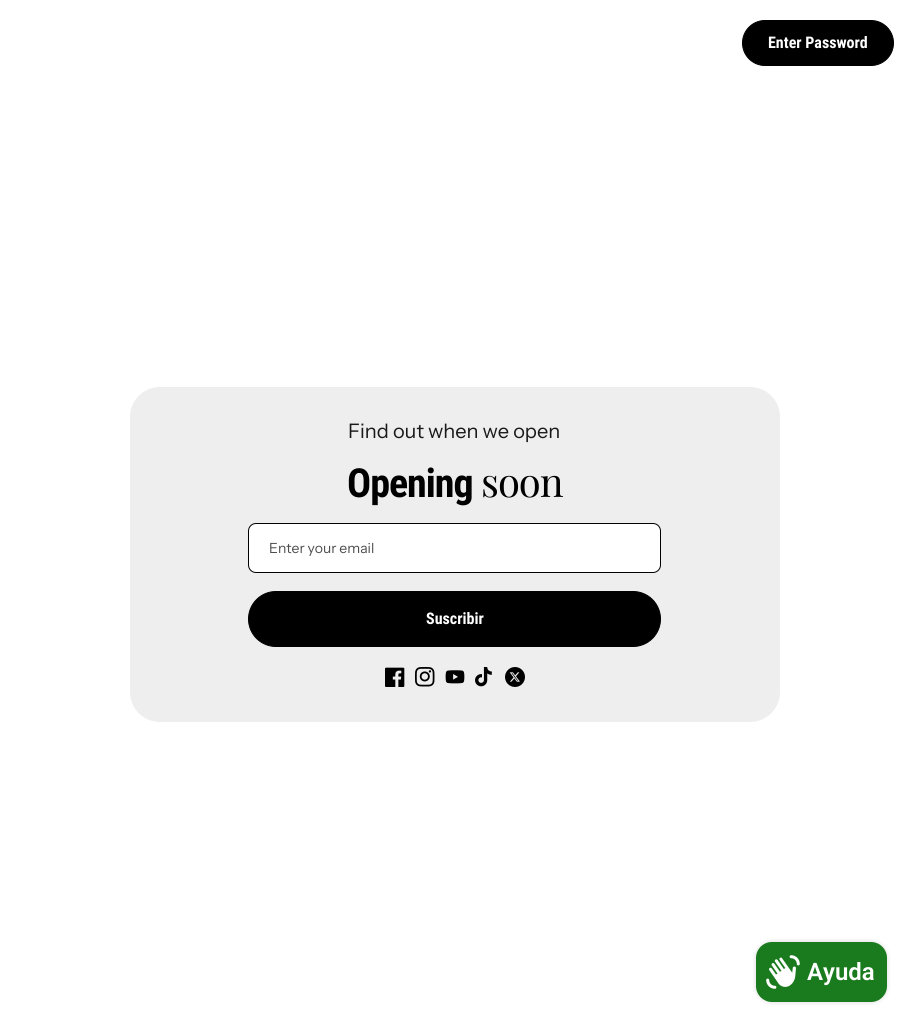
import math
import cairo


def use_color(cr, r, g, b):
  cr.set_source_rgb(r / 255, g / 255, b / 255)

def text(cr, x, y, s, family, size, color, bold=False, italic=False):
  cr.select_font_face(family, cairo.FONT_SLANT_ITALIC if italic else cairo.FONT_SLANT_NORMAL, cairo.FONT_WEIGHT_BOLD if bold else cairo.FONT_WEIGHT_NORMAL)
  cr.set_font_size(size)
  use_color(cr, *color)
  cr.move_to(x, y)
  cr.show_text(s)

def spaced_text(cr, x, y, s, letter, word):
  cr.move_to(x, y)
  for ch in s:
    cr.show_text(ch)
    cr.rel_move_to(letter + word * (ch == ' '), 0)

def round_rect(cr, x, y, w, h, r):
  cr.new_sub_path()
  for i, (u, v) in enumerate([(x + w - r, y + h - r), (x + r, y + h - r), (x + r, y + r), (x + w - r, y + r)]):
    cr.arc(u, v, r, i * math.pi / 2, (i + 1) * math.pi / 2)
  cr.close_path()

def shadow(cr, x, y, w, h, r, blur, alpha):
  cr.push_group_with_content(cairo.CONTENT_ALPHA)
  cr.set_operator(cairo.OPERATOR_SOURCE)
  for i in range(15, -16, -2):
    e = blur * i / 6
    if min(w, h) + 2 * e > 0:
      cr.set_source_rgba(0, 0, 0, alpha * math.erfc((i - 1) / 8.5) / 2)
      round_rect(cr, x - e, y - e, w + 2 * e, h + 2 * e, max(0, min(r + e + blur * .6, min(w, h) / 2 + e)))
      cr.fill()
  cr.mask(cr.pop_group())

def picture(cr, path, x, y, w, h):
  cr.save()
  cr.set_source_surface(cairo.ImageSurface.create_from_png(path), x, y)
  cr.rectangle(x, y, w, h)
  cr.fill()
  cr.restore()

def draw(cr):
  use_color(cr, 255, 255, 255)
  cr.paint()
  use_color(cr, 0, 0, 0)
  round_rect(cr, 742.5, 20.5, 151, 45, 22.5)
  cr.fill_preserve()
  cr.set_line_width(1)
  cr.stroke()
  use_color(cr, 238, 238, 238)
  round_rect(cr, 130, 387, 650, 335, 30)
  cr.fill()
  use_color(cr, 255, 255, 255)
  round_rect(cr, 248.5, 523.5, 412, 49, 7.5)
  cr.fill_preserve()
  use_color(cr, 0, 0, 0)
  cr.stroke()
  round_rect(cr, 248.5, 591.5, 412, 55, 27.5)
  cr.fill_preserve()
  cr.stroke()
  picture(cr, "img_01.png", 385, 667, 20, 20)
  picture(cr, "img_02.png", 415, 667, 20, 20)
  picture(cr, "img_03.png", 445, 670, 20, 14)
  picture(cr, "img_04.png", 475, 667, 17, 20)
  picture(cr, "img_05.png", 505, 667, 20, 20)
  use_color(cr, 0, 0, 0)
  shadow(cr, 756, 942, 131, 60, 16, 2.5, 0.15)
  use_color(cr, 26, 123, 30)
  round_rect(cr, 756, 942, 131, 60, 16)
  cr.fill()
  picture(cr, "img_06.png", 766, 955, 34, 34)
  text(cr, 768, 48, "Enter Password", "Roboto Condensed", 16, (255, 255, 255), bold=True)
  text(cr, 348, 438, "Find out when we open", "Instrument Sans", 20, (25, 25, 25))
  cr.select_font_face("Roboto Condensed", cairo.FONT_SLANT_NORMAL, cairo.FONT_WEIGHT_BOLD)
  cr.set_font_size(40)
  use_color(cr, 0, 0, 0)
  spaced_text(cr, 347, 497, "Opening", -1, 0)
  cr.select_font_face("Playfair Display")
  spaced_text(cr, 481, 497, "soon", -1, 0)
  text(cr, 269, 553, "Enter your email", "Instrument Sans", 14, (77, 77, 77))
  text(cr, 426, 624, "Suscribir", "Roboto Condensed", 16, (255, 255, 255), bold=True)
  text(cr, 807, 980, "Ayuda", "Roboto SemiBold", 24, (255, 255, 255))


surface = cairo.ImageSurface(cairo.FORMAT_RGB24, 919, 1023)
cr = cairo.Context(surface)
options = cairo.FontOptions()
options.set_hint_metrics(cairo.HINT_METRICS_OFF)
options.set_hint_style(cairo.HINT_STYLE_NONE)
cr.set_font_options(options)
cr.set_miter_limit(4)
draw(cr)
surface.write_to_png("out.png")
